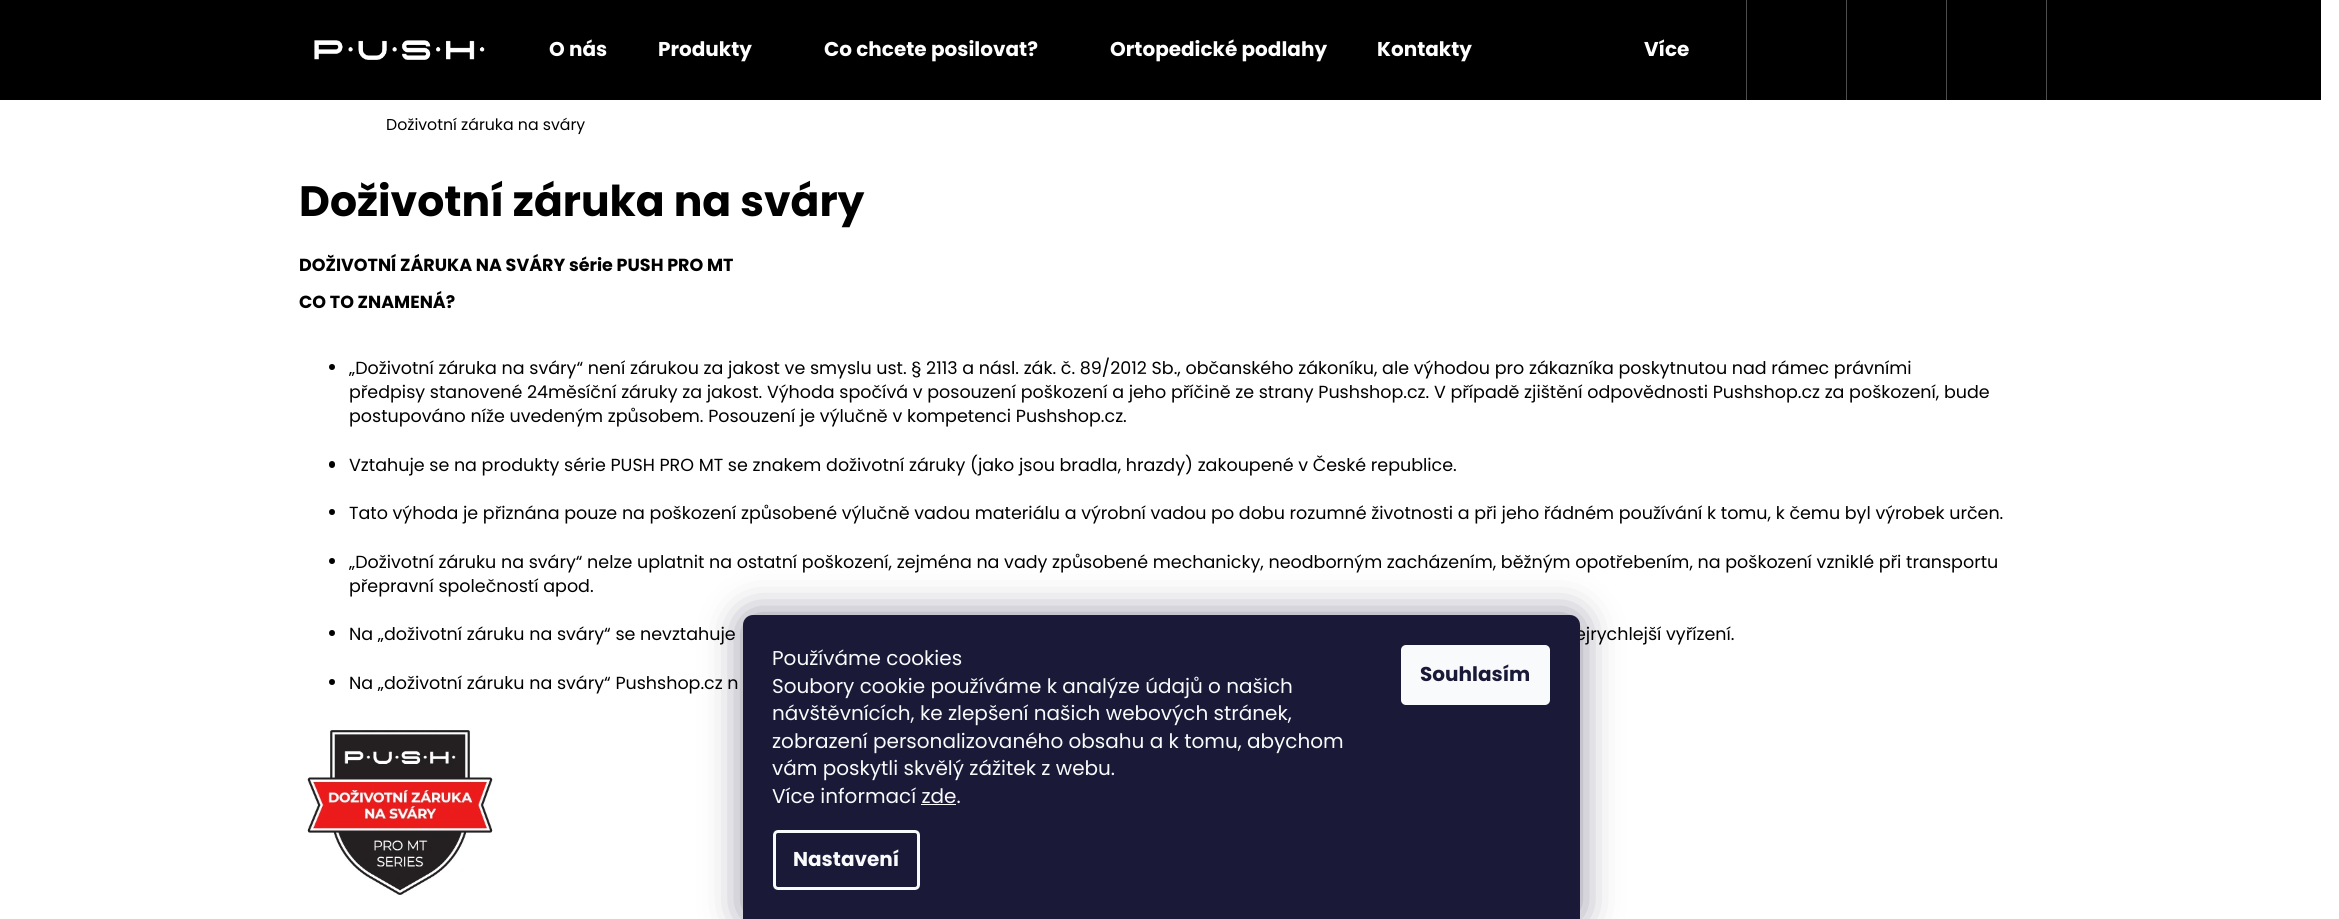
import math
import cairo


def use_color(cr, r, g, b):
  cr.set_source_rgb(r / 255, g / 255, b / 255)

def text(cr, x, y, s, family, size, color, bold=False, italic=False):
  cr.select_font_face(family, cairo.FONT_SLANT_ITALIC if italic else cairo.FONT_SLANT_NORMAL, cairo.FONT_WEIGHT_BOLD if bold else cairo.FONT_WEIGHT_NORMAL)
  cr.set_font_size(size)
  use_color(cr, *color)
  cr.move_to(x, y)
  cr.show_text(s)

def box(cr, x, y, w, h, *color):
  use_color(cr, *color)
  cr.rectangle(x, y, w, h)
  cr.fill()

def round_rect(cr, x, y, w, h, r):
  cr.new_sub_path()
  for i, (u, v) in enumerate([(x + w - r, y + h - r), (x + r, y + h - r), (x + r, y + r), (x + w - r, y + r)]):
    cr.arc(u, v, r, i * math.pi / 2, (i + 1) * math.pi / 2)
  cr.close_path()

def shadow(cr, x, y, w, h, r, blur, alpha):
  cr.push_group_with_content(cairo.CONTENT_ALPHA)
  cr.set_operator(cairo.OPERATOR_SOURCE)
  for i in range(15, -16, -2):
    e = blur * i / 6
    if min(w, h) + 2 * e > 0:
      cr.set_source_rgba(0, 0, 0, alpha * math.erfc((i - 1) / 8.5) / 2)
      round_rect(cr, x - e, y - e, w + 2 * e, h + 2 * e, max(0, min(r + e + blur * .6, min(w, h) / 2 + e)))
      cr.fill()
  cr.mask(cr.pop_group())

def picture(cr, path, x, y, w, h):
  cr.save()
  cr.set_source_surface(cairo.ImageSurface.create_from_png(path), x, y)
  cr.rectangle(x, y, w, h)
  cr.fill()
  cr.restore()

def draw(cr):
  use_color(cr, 255, 255, 255)
  cr.paint()
  box(cr, 0, 0, 2321, 100, 0, 0, 0)
  picture(cr, "img_01.png", 314, 40, 171, 20)
  box(cr, 2046, 0, 1, 100, 77, 77, 77)
  box(cr, 1746, 0, 1, 100, 77, 77, 77)
  box(cr, 1846, 0, 1, 100, 77, 77, 77)
  box(cr, 1946, 0, 1, 100, 77, 77, 77)
  use_color(cr, 0, 0, 0)
  cr.arc(332, 367, 3, 0, 2 * math.pi)
  cr.fill()
  round_rect(cr, 329, 461, 6, 7, 3)
  cr.fill()
  cr.arc(332, 512, 3, 0, 2 * math.pi)
  cr.fill()
  cr.arc(332, 561, 3, 0, 2 * math.pi)
  cr.fill()
  cr.arc(332, 633, 3, 0, 2 * math.pi)
  cr.fill()
  cr.arc(332, 682, 3, 0, 2 * math.pi)
  cr.fill()
  picture(cr, "img_02.png", 307, 730, 186, 165)
  use_color(cr, 27, 25, 57)
  shadow(cr, 743, 615, 837, 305, 10, 19, 0.5)
  text(cr, 549, 56, "O nás", "Poppins", 20, (255, 255, 255), bold=True)
  text(cr, 658, 56, "Produkty", "Poppins", 20, (255, 255, 255), bold=True)
  text(cr, 824, 56, "Co chcete posilovat?", "Poppins", 20, (255, 255, 255), bold=True)
  text(cr, 1110, 56, "Ortopedické podlahy", "Poppins", 20, (255, 255, 255), bold=True)
  text(cr, 1377, 56, "Kontakty", "Poppins", 20, (255, 255, 255), bold=True)
  text(cr, 1644, 56, "Více", "Poppins", 20, (255, 255, 255), bold=True)
  text(cr, 386, 130, "Doživotní záruka na sváry", "Poppins", 15.75, (0, 0, 0))
  text(cr, 299, 216, "Doživotní záruka na sváry", "Poppins", 42.5, (0, 0, 0), bold=True)
  text(cr, 299, 271, "DOŽIVOTNÍ ZÁRUKA NA SVÁRY série PUSH PRO MT", "Poppins", 17.5, (0, 0, 0), bold=True)
  text(cr, 299, 308, "CO TO ZNAMENÁ?", "Poppins", 17.5, (0, 0, 0), bold=True)
  text(cr, 349, 374, "„Doživotní záruka na sváry“ není zárukou za jakost ve smyslu ust. § 2113 a násl. zák. č. 89/2012 Sb., občanského zákoníku, ale výhodou pro zákazníka poskytnutou nad rámec právními", "Poppins", 17.5, (0, 0, 0))
  text(cr, 349, 398, "předpisy stanovené 24měsíční záruky za jakost. Výhoda spočívá v posouzení poškození a jeho příčině ze strany Pushshop.cz. V případě zjištění odpovědnosti Pushshop.cz za poškození, bude", "Poppins", 17.5, (0, 0, 0))
  text(cr, 349, 422, "postupováno níže uvedeným způsobem. Posouzení je výlučně v kompetenci Pushshop.cz.", "Poppins", 17.5, (0, 0, 0))
  text(cr, 349, 471, "Vztahuje se na produkty série PUSH PRO MT se znakem doživotní záruky (jako jsou bradla, hrazdy) zakoupené v České republice.", "Poppins", 17.5, (0, 0, 0))
  text(cr, 349, 519, "Tato výhoda je přiznána pouze na poškození způsobené výlučně vadou materiálu a výrobní vadou po dobu rozumné životnosti a při jeho řádném používání k tomu, k čemu byl výrobek určen.", "Poppins", 17.5, (0, 0, 0))
  text(cr, 349, 568, "„Doživotní záruku na sváry“ nelze uplatnit na ostatní poškození, zejména na vady způsobené mechanicky, neodborným zacházením, běžným opotřebením, na poškození vzniklé při transportu", "Poppins", 17.5, (0, 0, 0))
  text(cr, 349, 592, "přepravní společností apod.", "Poppins", 17.5, (0, 0, 0))
  text(cr, 349, 640, "Na „doživotní záruku na sváry“ se nevztahuje", "Poppins", 17.5, (0, 0, 0))
  text(cr, 1575, 640, "ejrychlejší vyřízení.", "Poppins", 17.5, (0, 0, 0))
  text(cr, 349, 689, "Na „doživotní záruku na sváry“ Pushshop.cz n", "Poppins", 17.5, (0, 0, 0))
  use_color(cr, 26, 25, 55)
  cr.new_path()
  cr.move_to(753, 615)
  cr.line_to(1570, 615)
  cr.curve_to(1575.5, 615, 1580, 619.5, 1580, 625)
  cr.line_to(1580, 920)
  cr.line_to(743, 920)
  cr.line_to(743, 625)
  cr.curve_to(743, 619.5, 747.5, 615, 753, 615)
  cr.close_path()
  cr.fill()
  text(cr, 772, 665, "Používáme cookies", "Poppins", 20, (248, 250, 251))
  text(cr, 772, 693, "Soubory cookie používáme k analýze údajů o našich", "Poppins", 20, (248, 250, 251))
  text(cr, 772, 720, "návštěvnících, ke zlepšení našich webových stránek,", "Poppins", 20, (248, 250, 251))
  text(cr, 772, 748, "zobrazení personalizovaného obsahu a k tomu, abychom", "Poppins", 20, (248, 250, 251))
  text(cr, 772, 775, "vám poskytli skvělý zážitek z webu.", "Poppins", 20, (248, 250, 251))
  text(cr, 772, 803, "Více informací zde.", "Poppins", 20, (248, 250, 251))
  box(cr, 921, 804, 35, 1, 248, 250, 251)
  round_rect(cr, 774.5, 831.5, 144, 57, 3.5)
  cr.set_line_width(3)
  cr.stroke()
  text(cr, 793, 866, "Nastavení", "Poppins", 20, (248, 250, 251), bold=True)
  round_rect(cr, 1401, 645, 149, 60, 5)
  cr.fill()
  text(cr, 1420, 681, "Souhlasím", "Poppins", 20, (26, 25, 55), bold=True)


surface = cairo.ImageSurface(cairo.FORMAT_RGB24, 2339, 919)
cr = cairo.Context(surface)
options = cairo.FontOptions()
options.set_hint_metrics(cairo.HINT_METRICS_OFF)
options.set_hint_style(cairo.HINT_STYLE_NONE)
cr.set_font_options(options)
cr.set_miter_limit(4)
draw(cr)
surface.write_to_png("out.png")
